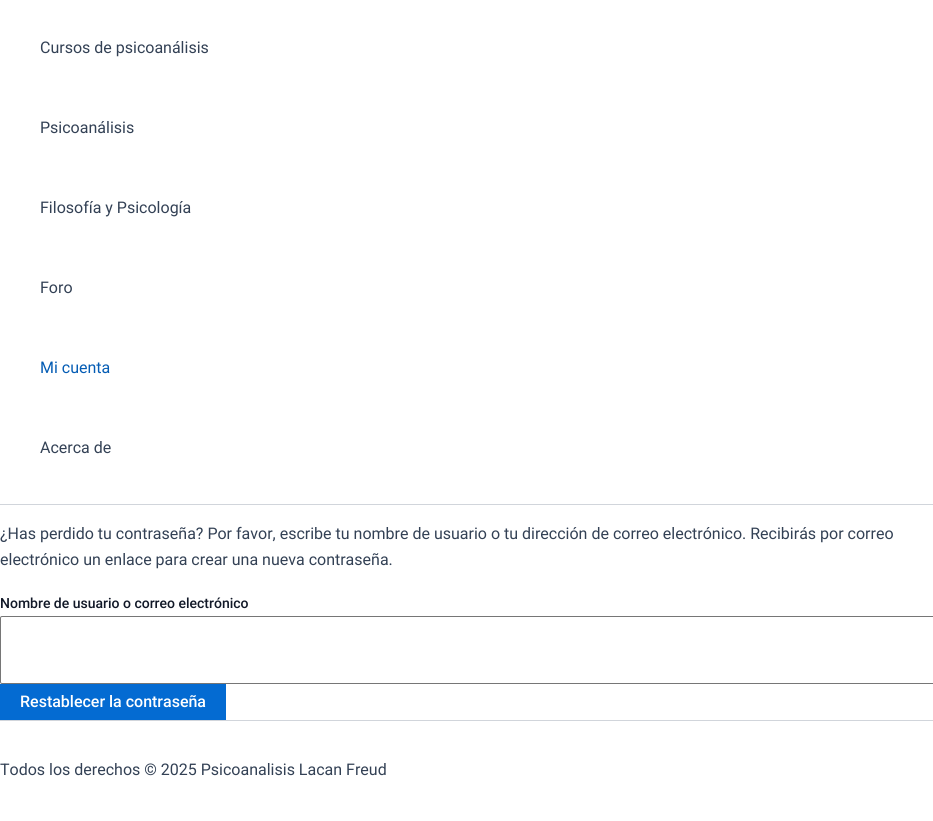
import math
import cairo


def use_color(cr, r, g, b):
  cr.set_source_rgb(r / 255, g / 255, b / 255)

def text(cr, x, y, s, family, size, color, bold=False, italic=False):
  cr.select_font_face(family, cairo.FONT_SLANT_ITALIC if italic else cairo.FONT_SLANT_NORMAL, cairo.FONT_WEIGHT_BOLD if bold else cairo.FONT_WEIGHT_NORMAL)
  cr.set_font_size(size)
  use_color(cr, *color)
  cr.move_to(x, y)
  cr.show_text(s)

def box(cr, x, y, w, h, *color):
  use_color(cr, *color)
  cr.rectangle(x, y, w, h)
  cr.fill()

def round_rect(cr, x, y, w, h, r):
  cr.new_sub_path()
  for i, (u, v) in enumerate([(x + w - r, y + h - r), (x + r, y + h - r), (x + r, y + r), (x + w - r, y + r)]):
    cr.arc(u, v, r, i * math.pi / 2, (i + 1) * math.pi / 2)
  cr.close_path()

def draw(cr):
  use_color(cr, 255, 255, 255)
  cr.paint()
  box(cr, 0, 504, 933, 1, 209, 213, 219)
  round_rect(cr, 0.5, 616.5, 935, 67, 1.5)
  use_color(cr, 118, 118, 118)
  cr.set_line_width(1)
  cr.stroke()
  box(cr, 0, 684, 226, 36, 4, 107, 210)
  box(cr, 0, 720, 933, 1, 209, 213, 219)
  text(cr, 40, 53, "Cursos de psicoanálisis", "Roboto", 16, (51, 65, 85))
  text(cr, 40, 133, "Psicoanálisis", "Roboto", 16, (51, 65, 85))
  text(cr, 40, 213, "Filosofía y Psicología", "Roboto", 16, (51, 65, 85))
  text(cr, 40, 293, "Foro", "Roboto", 16, (51, 65, 85))
  text(cr, 40, 373, "Mi cuenta", "Roboto", 16, (4, 92, 180))
  text(cr, 40, 453, "Acerca de", "Roboto", 16, (51, 65, 85))
  text(cr, 0, 539, "¿Has perdido tu contraseña? Por favor, escribe tu nombre de usuario o tu dirección de correo electrónico. Recibirás por correo", "Roboto", 16, (51, 65, 85))
  text(cr, 0, 565, "electrónico un enlace para crear una nueva contraseña.", "Roboto", 16, (51, 65, 85))
  text(cr, 0, 608, "Nombre de usuario o correo electrónico", "Roboto Medium", 14, (17, 24, 39))
  text(cr, 20, 707, "Restablecer la contraseña", "Roboto Medium", 16, (255, 255, 255))
  text(cr, 0, 775, "Todos los derechos © 2025 Psicoanalisis Lacan Freud", "Roboto", 16, (51, 65, 85))


surface = cairo.ImageSurface(cairo.FORMAT_RGB24, 933, 821)
cr = cairo.Context(surface)
options = cairo.FontOptions()
options.set_hint_metrics(cairo.HINT_METRICS_OFF)
options.set_hint_style(cairo.HINT_STYLE_NONE)
cr.set_font_options(options)
cr.set_miter_limit(4)
draw(cr)
surface.write_to_png("out.png")
